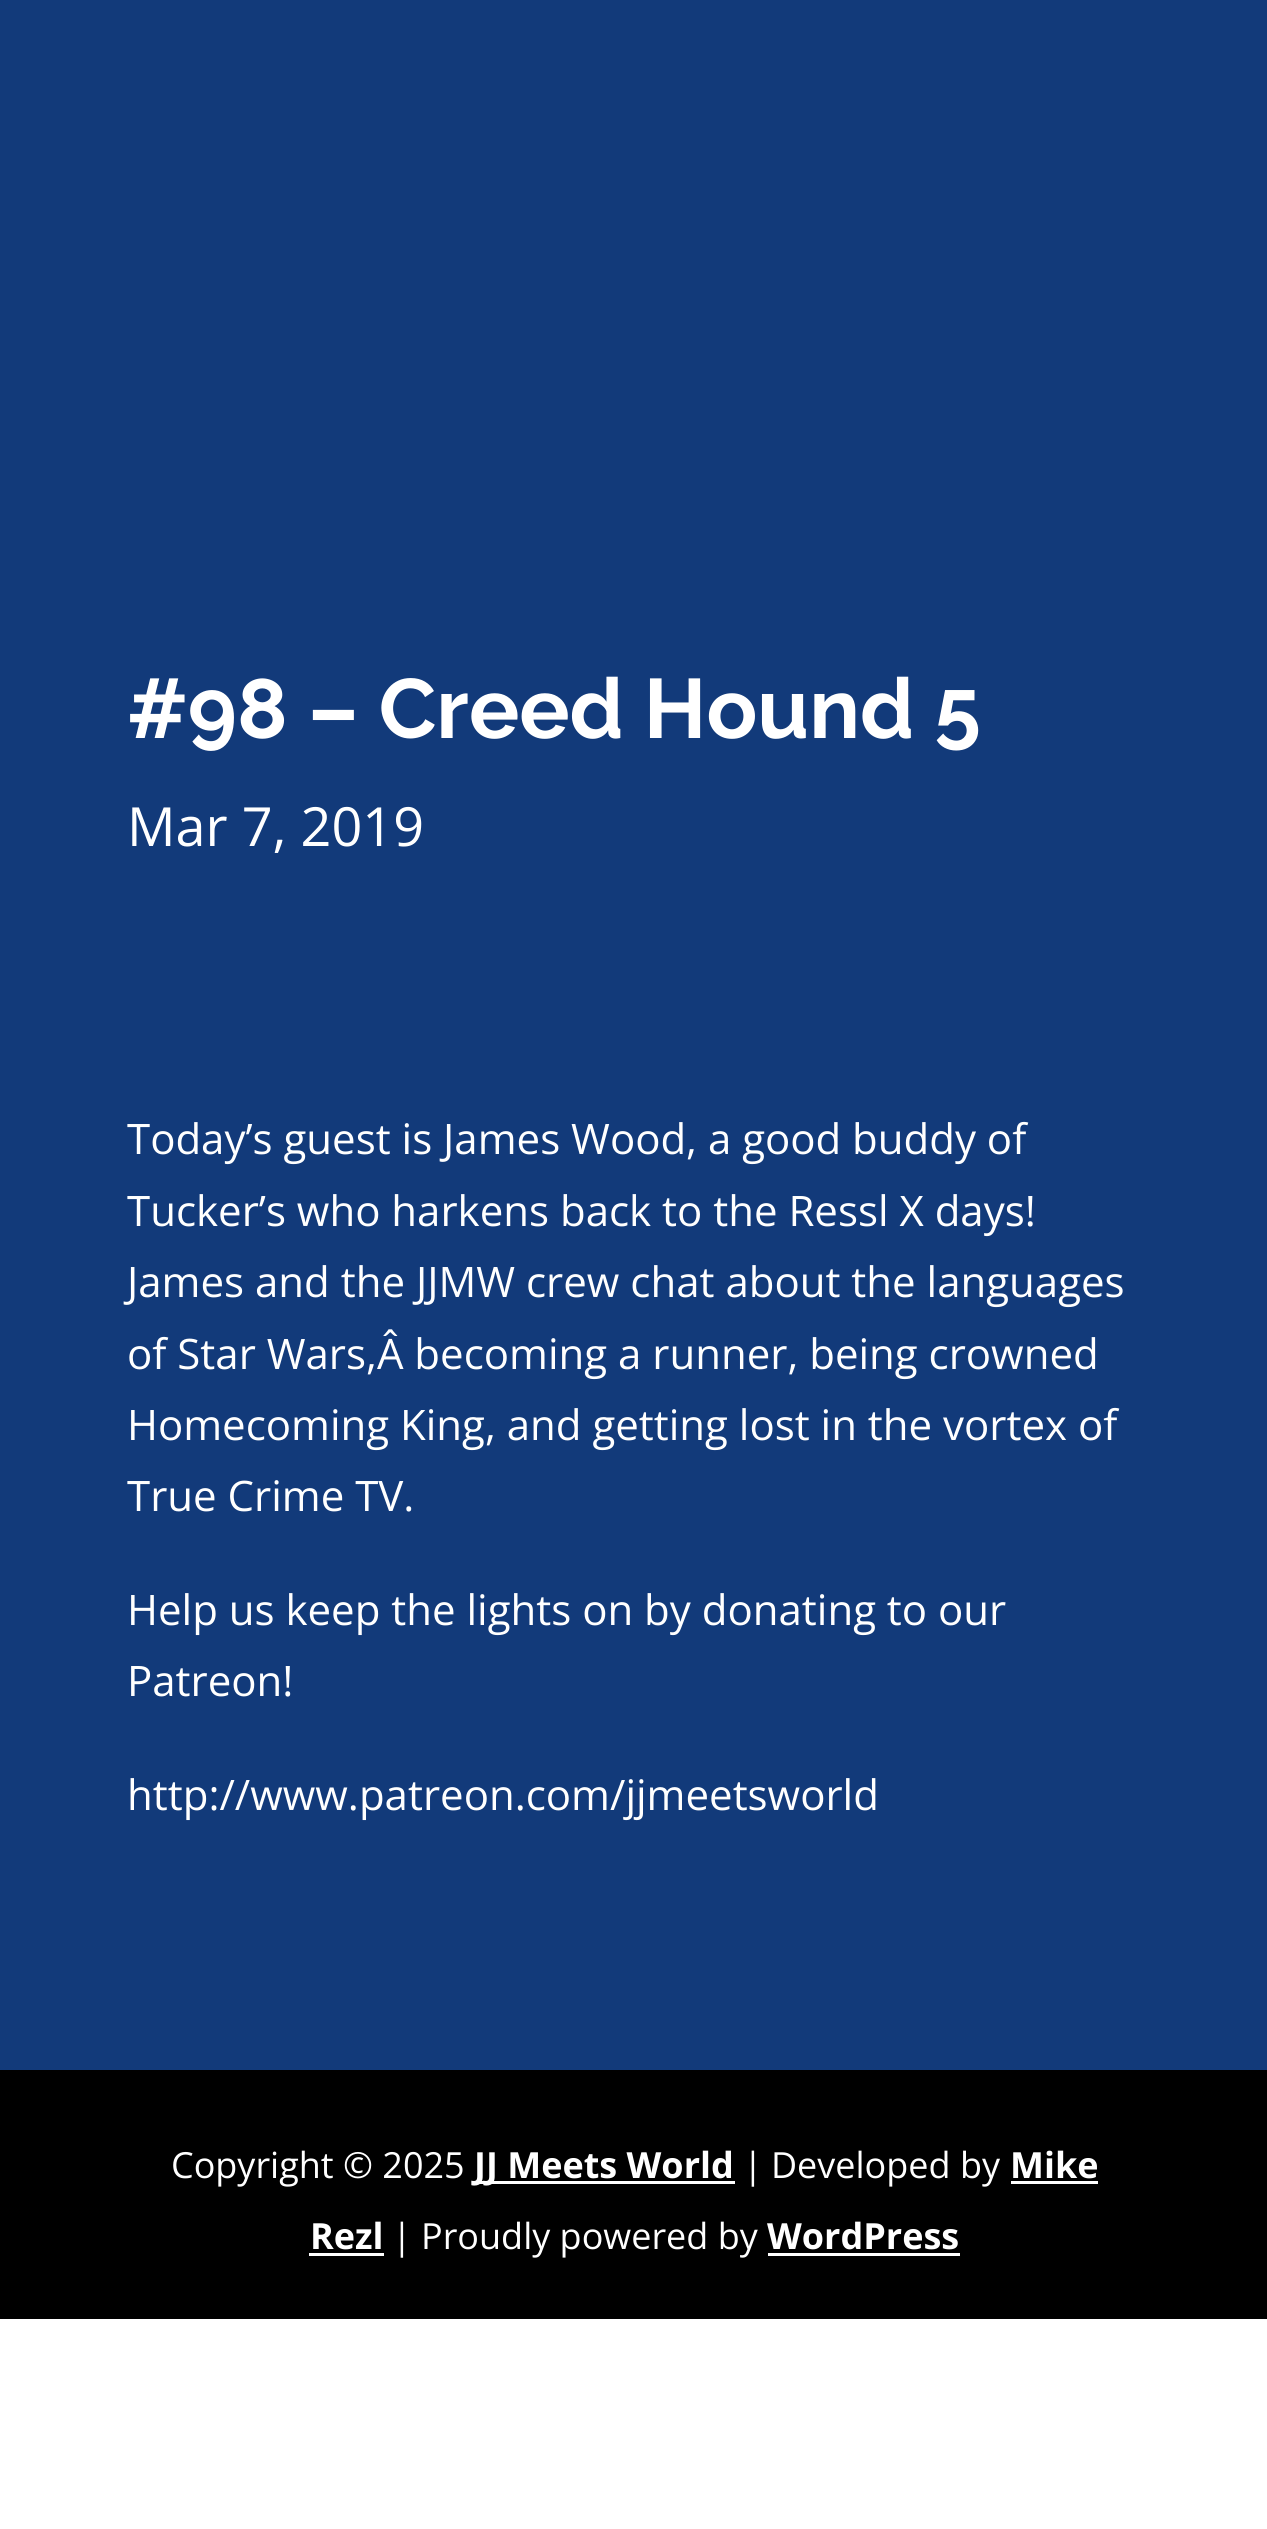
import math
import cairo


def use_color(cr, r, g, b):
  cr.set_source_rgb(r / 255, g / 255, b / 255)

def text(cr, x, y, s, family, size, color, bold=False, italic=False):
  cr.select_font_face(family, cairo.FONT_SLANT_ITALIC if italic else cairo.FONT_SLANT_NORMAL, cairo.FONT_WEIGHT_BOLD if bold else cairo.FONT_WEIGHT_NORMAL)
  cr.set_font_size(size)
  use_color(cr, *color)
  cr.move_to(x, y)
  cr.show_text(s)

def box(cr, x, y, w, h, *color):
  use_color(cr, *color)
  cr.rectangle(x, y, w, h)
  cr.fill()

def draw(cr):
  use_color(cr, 255, 255, 255)
  cr.paint()
  box(cr, 0, 0, 1267, 2070, 18, 58, 122)
  box(cr, 0, 2070, 1267, 249, 0, 0, 0)
  box(cr, 474, 2181, 261, 3, 255, 255, 255)
  box(cr, 1011, 2181, 87, 3, 255, 255, 255)
  box(cr, 309, 2253, 75, 3, 255, 255, 255)
  box(cr, 768, 2253, 192, 3, 255, 255, 255)
  text(cr, 127, 738, "#98 – Creed Hound 5", "Raleway", 84, (255, 255, 255), bold=True)
  text(cr, 127, 846, "Mar 7, 2019", "Open Sans", 54, (255, 255, 255))
  text(cr, 127, 1154, "Today’s guest is James Wood, a good buddy of", "Open Sans", 42, (255, 255, 255))
  text(cr, 127, 1226, "Tucker’s who harkens back to the Ressl X days!", "Open Sans", 42, (255, 255, 255))
  text(cr, 127, 1297, "James and the JJMW crew chat about the languages", "Open Sans", 42, (255, 255, 255))
  text(cr, 127, 1369, "of Star Wars,Â becoming a runner, being crowned", "Open Sans", 42, (255, 255, 255))
  text(cr, 127, 1440, "Homecoming King, and getting lost in the vortex of", "Open Sans", 42, (255, 255, 255))
  text(cr, 127, 1511, "True Crime TV.", "Open Sans", 42, (255, 255, 255))
  text(cr, 127, 1625, "Help us keep the lights on by donating to our", "Open Sans", 42, (255, 255, 255))
  text(cr, 127, 1696, "Patreon!", "Open Sans", 42, (255, 255, 255))
  text(cr, 127, 1810, "http://www.patreon.com/jjmeetsworld", "Open Sans", 42, (255, 255, 255))
  text(cr, 171, 2178, "Copyright © 2025", "Open Sans", 36, (255, 255, 255))
  text(cr, 474, 2178, "JJ Meets World", "Open Sans", 36, (255, 255, 255), bold=True)
  text(cr, 743, 2178, "|", "Open Sans", 36, (255, 255, 255))
  text(cr, 771, 2178, "Developed by", "Open Sans", 36, (255, 255, 255))
  text(cr, 1010, 2178, "Mike", "Open Sans", 36, (255, 255, 255), bold=True)
  text(cr, 310, 2249, "Rezl", "Open Sans", 36, (255, 255, 255), bold=True)
  text(cr, 392, 2249, "|", "Open Sans", 36, (255, 255, 255))
  text(cr, 421, 2249, "Proudly powered by", "Open Sans", 36, (255, 255, 255))
  text(cr, 767, 2249, "WordPress", "Open Sans", 36, (255, 255, 255), bold=True)


surface = cairo.ImageSurface(cairo.FORMAT_RGB24, 1267, 2529)
cr = cairo.Context(surface)
options = cairo.FontOptions()
options.set_hint_metrics(cairo.HINT_METRICS_OFF)
options.set_hint_style(cairo.HINT_STYLE_NONE)
cr.set_font_options(options)
cr.set_miter_limit(4)
draw(cr)
surface.write_to_png("out.png")
